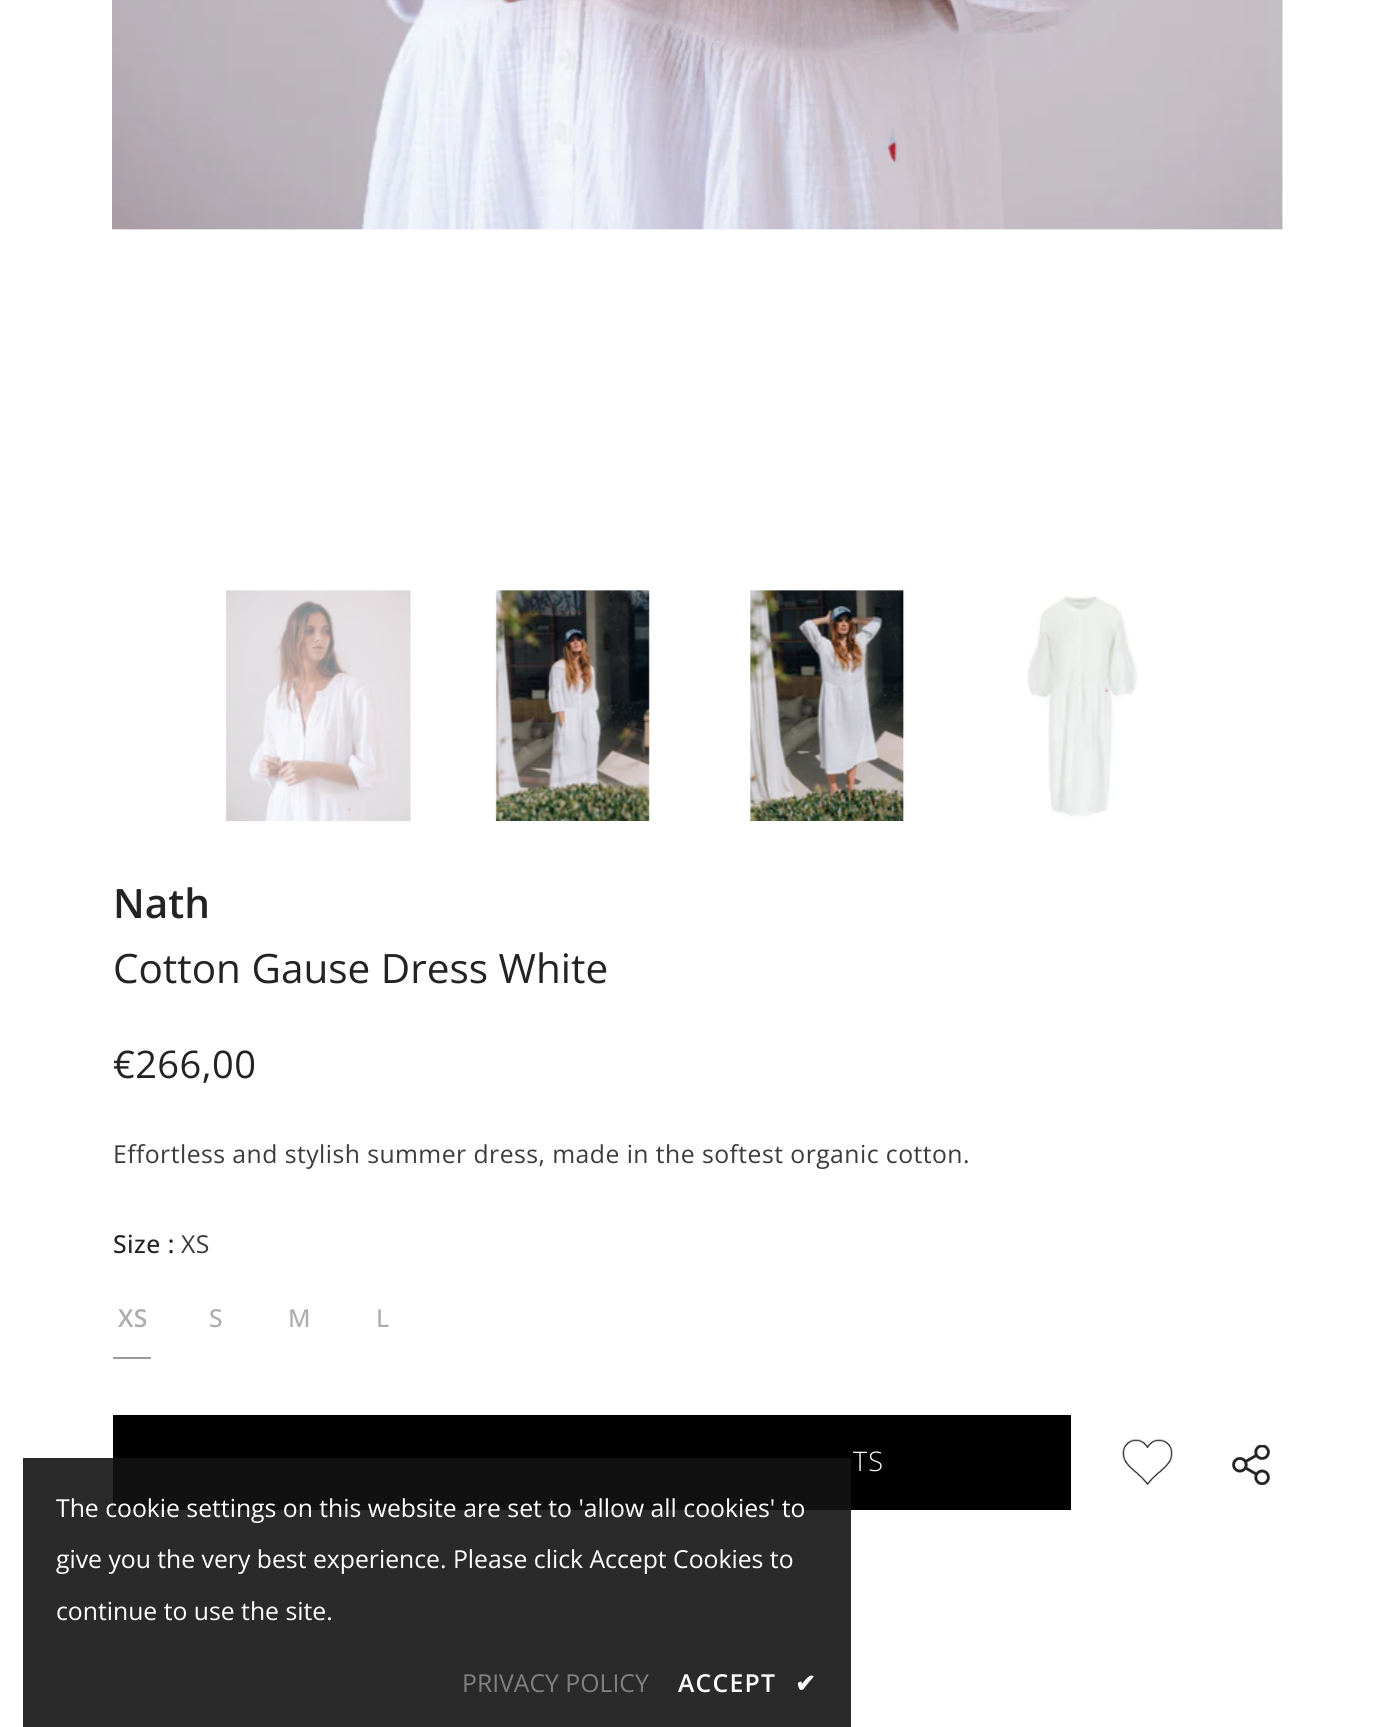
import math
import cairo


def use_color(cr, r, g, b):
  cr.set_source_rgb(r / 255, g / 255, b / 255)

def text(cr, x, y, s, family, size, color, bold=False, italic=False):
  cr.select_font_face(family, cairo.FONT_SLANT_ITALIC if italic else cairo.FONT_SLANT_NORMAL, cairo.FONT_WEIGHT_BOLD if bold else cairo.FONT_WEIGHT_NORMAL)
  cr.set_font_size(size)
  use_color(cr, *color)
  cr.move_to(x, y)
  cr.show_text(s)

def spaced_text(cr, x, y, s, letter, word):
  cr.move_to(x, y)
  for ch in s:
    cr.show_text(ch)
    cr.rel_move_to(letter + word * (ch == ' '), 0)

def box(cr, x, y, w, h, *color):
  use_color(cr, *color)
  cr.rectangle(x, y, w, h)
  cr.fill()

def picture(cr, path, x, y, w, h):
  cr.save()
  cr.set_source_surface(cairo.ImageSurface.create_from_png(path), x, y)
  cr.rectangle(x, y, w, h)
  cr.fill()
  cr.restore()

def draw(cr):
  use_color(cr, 255, 255, 255)
  cr.paint()
  picture(cr, "img_01.png", 112, 0, 1171, 230)
  picture(cr, "img_02.png", 225, 590, 186, 231)
  picture(cr, "img_03.png", 495, 590, 155, 231)
  picture(cr, "img_04.png", 750, 590, 155, 231)
  picture(cr, "img_05.png", 1027, 596, 111, 221)
  box(cr, 113, 1357, 38, 2, 153, 153, 153)
  box(cr, 113, 1415, 958, 95, 0, 0, 0)
  picture(cr, "img_06.png", 1122, 1439, 51, 46)
  picture(cr, "img_07.png", 1232, 1445, 38, 40)
  cr.set_source_rgba(0.078, 0.078, 0.078, 0.9)
  cr.rectangle(23, 1458, 828, 269)
  cr.fill()
  text(cr, 113, 918, "Nath", "Open Sans SemiBold", 40.5, (35, 35, 35))
  text(cr, 113, 983, "Cotton Gause Dress White", "Open Sans", 40.5, (35, 35, 35))
  cr.set_font_size(38)
  spaced_text(cr, 113, 1078, "€266,00", 0.45, 0)
  cr.set_font_size(24.75)
  use_color(cr, 60, 60, 60)
  spaced_text(cr, 113, 1163, "Effortless and stylish summer dress, made in the softest organic cotton.", 0.45, 0)
  cr.select_font_face("Open Sans Medium")
  use_color(cr, 35, 35, 35)
  spaced_text(cr, 113, 1253, "Size :", 0.45, 0)
  cr.select_font_face("Open Sans")
  use_color(cr, 60, 60, 60)
  spaced_text(cr, 181, 1253, "XS", 0.45, 0)
  cr.select_font_face("Open Sans SemiBold")
  use_color(cr, 173, 173, 173)
  spaced_text(cr, 118, 1327, "XS", 0.45, 0)
  cr.select_font_face("Open Sans Medium")
  spaced_text(cr, 209, 1327, "S", 0.45, 0)
  spaced_text(cr, 288, 1327, "M", 0.45, 0)
  spaced_text(cr, 376, 1327, "L", 0.45, 0)
  cr.select_font_face("Open Sans Light")
  cr.set_font_size(27)
  use_color(cr, 255, 255, 255)
  spaced_text(cr, 853, 1471, "TS", 1, 0)
  text(cr, 56, 1517, "The cookie settings on this website are set to 'allow all cookies' to", "Open Sans", 24.75, (255, 255, 255))
  text(cr, 56, 1568, "give you the very best experience. Please click Accept Cookies to", "Open Sans", 24.75, (255, 255, 255))
  text(cr, 56, 1620, "continue to use the site.", "Open Sans", 24.75, (255, 255, 255))
  text(cr, 462, 1692, "PRIVACY POLICY", "Open Sans", 24.75, (129, 129, 129))
  cr.select_font_face("Open Sans SemiBold")
  use_color(cr, 255, 255, 255)
  spaced_text(cr, 678, 1692, "ACCEPT", 1.25, 0)
  cr.select_font_face("DejaVu Sans", cairo.FONT_SLANT_NORMAL, cairo.FONT_WEIGHT_BOLD)
  spaced_text(cr, 795, 1692, "✔", 1.25, 0)


surface = cairo.ImageSurface(cairo.FORMAT_RGB24, 1393, 1727)
cr = cairo.Context(surface)
options = cairo.FontOptions()
options.set_hint_metrics(cairo.HINT_METRICS_OFF)
options.set_hint_style(cairo.HINT_STYLE_NONE)
cr.set_font_options(options)
cr.set_miter_limit(4)
draw(cr)
surface.write_to_png("out.png")
